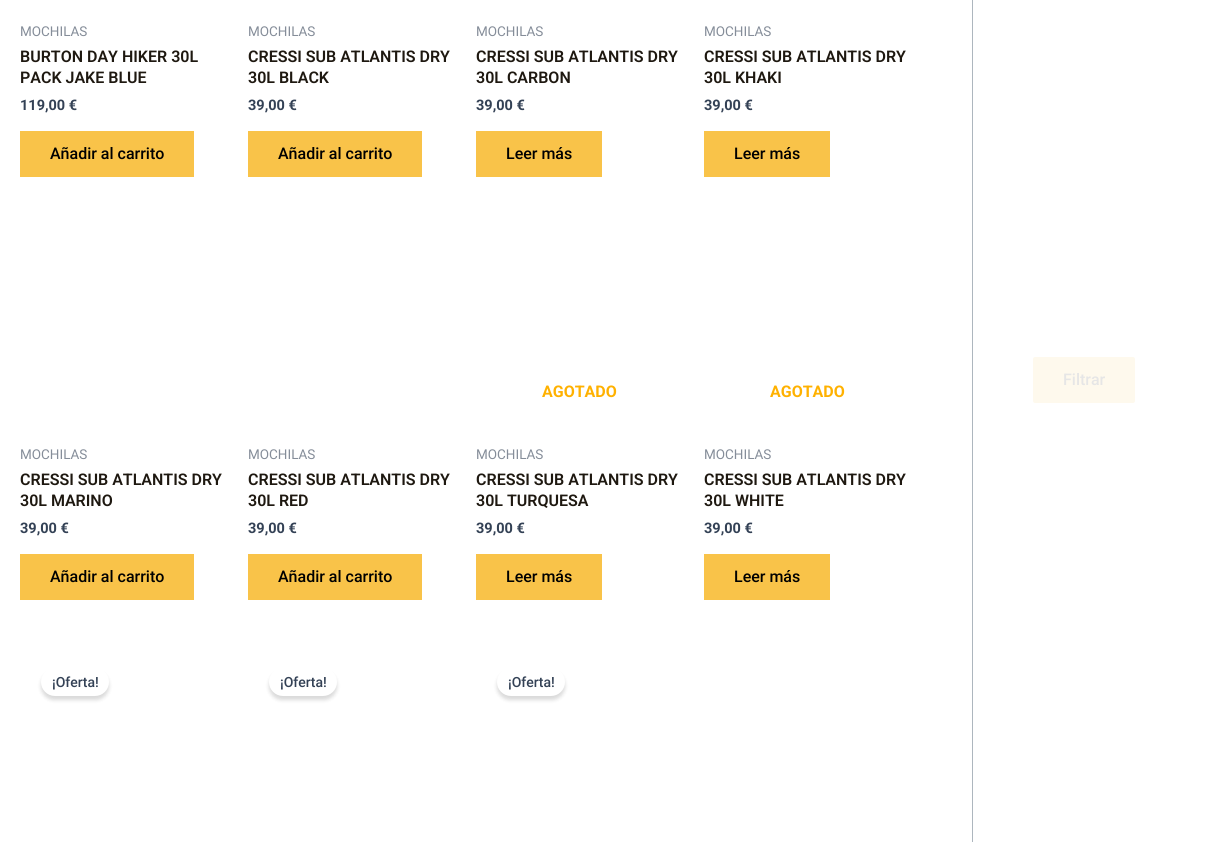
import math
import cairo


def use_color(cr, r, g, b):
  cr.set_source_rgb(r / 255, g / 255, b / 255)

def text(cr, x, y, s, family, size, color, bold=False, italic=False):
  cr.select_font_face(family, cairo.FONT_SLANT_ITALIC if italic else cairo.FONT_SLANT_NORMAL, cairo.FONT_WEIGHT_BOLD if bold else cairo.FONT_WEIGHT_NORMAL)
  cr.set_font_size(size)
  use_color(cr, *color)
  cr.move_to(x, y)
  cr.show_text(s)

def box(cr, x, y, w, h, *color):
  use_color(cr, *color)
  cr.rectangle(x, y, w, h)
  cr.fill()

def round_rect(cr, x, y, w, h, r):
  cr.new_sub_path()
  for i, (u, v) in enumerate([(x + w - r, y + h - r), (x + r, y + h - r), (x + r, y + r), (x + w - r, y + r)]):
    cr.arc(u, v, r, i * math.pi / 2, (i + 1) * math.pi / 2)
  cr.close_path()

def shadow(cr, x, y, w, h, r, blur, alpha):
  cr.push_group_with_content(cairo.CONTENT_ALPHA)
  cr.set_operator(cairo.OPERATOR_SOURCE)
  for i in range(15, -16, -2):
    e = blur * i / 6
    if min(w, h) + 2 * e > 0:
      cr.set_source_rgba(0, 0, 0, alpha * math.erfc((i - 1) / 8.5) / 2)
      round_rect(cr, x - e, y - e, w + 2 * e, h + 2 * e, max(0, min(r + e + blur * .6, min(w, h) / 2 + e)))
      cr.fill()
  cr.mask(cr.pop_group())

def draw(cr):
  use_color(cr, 255, 255, 255)
  cr.paint()
  box(cr, 972, 0, 1, 842, 173, 182, 190)
  box(cr, 20, 131, 174, 46, 249, 195, 73)
  box(cr, 248, 131, 174, 46, 249, 195, 73)
  box(cr, 476, 131, 126, 46, 249, 195, 73)
  box(cr, 704, 131, 126, 46, 249, 195, 73)
  box(cr, 20, 554, 174, 46, 249, 195, 73)
  box(cr, 248, 554, 174, 46, 249, 195, 73)
  box(cr, 476, 554, 126, 46, 249, 195, 73)
  box(cr, 704, 554, 126, 46, 249, 195, 73)
  use_color(cr, 0, 0, 0)
  shadow(cr, 41, 672, 68, 28, 14, 2, 0.15)
  use_color(cr, 255, 255, 255)
  round_rect(cr, 41, 668, 68, 28, 14)
  cr.fill()
  use_color(cr, 0, 0, 0)
  shadow(cr, 269, 672, 68, 28, 14, 2, 0.15)
  use_color(cr, 255, 255, 255)
  round_rect(cr, 269, 668, 68, 28, 14)
  cr.fill()
  use_color(cr, 0, 0, 0)
  shadow(cr, 497, 672, 68, 28, 14, 2, 0.15)
  use_color(cr, 255, 255, 255)
  round_rect(cr, 497, 668, 68, 28, 14)
  cr.fill()
  use_color(cr, 254, 249, 237)
  round_rect(cr, 1033, 357, 102, 46, 2)
  cr.fill()
  text(cr, 20, 36, "MOCHILAS", "Roboto", 13.5, (133, 141, 153))
  text(cr, 20, 62, "BURTON DAY HIKER 30L", "Roboto SemiBold", 16, (30, 24, 16))
  text(cr, 20, 83, "PACK JAKE BLUE", "Roboto SemiBold", 16, (30, 24, 16))
  text(cr, 20, 110, "119,00 €", "Roboto", 14.5, (51, 65, 85), bold=True)
  text(cr, 50, 159, "Añadir al carrito", "Roboto Medium", 16, (0, 0, 0))
  text(cr, 248, 36, "MOCHILAS", "Roboto", 13.5, (133, 141, 153))
  text(cr, 248, 62, "CRESSI SUB ATLANTIS DRY", "Roboto SemiBold", 16, (30, 24, 16))
  text(cr, 248, 83, "30L BLACK", "Roboto SemiBold", 16, (30, 24, 16))
  text(cr, 248, 110, "39,00 €", "Roboto", 14.5, (51, 65, 85), bold=True)
  text(cr, 278, 159, "Añadir al carrito", "Roboto Medium", 16, (0, 0, 0))
  text(cr, 476, 36, "MOCHILAS", "Roboto", 13.5, (133, 141, 153))
  text(cr, 476, 62, "CRESSI SUB ATLANTIS DRY", "Roboto SemiBold", 16, (30, 24, 16))
  text(cr, 476, 83, "30L CARBON", "Roboto SemiBold", 16, (30, 24, 16))
  text(cr, 476, 110, "39,00 €", "Roboto", 14.5, (51, 65, 85), bold=True)
  text(cr, 506, 159, "Leer más", "Roboto Medium", 16, (0, 0, 0))
  text(cr, 704, 36, "MOCHILAS", "Roboto", 13.5, (133, 141, 153))
  text(cr, 704, 62, "CRESSI SUB ATLANTIS DRY", "Roboto SemiBold", 16, (30, 24, 16))
  text(cr, 704, 83, "30L KHAKI", "Roboto SemiBold", 16, (30, 24, 16))
  text(cr, 704, 110, "39,00 €", "Roboto", 14.5, (51, 65, 85), bold=True)
  text(cr, 734, 159, "Leer más", "Roboto Medium", 16, (0, 0, 0))
  text(cr, 20, 459, "MOCHILAS", "Roboto", 13.5, (133, 141, 153))
  text(cr, 20, 485, "CRESSI SUB ATLANTIS DRY", "Roboto SemiBold", 16, (30, 24, 16))
  text(cr, 20, 506, "30L MARINO", "Roboto SemiBold", 16, (30, 24, 16))
  text(cr, 20, 533, "39,00 €", "Roboto", 14.5, (51, 65, 85), bold=True)
  text(cr, 50, 582, "Añadir al carrito", "Roboto Medium", 16, (0, 0, 0))
  text(cr, 248, 459, "MOCHILAS", "Roboto", 13.5, (133, 141, 153))
  text(cr, 248, 485, "CRESSI SUB ATLANTIS DRY", "Roboto SemiBold", 16, (30, 24, 16))
  text(cr, 248, 506, "30L RED", "Roboto SemiBold", 16, (30, 24, 16))
  text(cr, 248, 533, "39,00 €", "Roboto", 14.5, (51, 65, 85), bold=True)
  text(cr, 278, 582, "Añadir al carrito", "Roboto Medium", 16, (0, 0, 0))
  text(cr, 542, 397, "AGOTADO", "Roboto", 16, (255, 177, 0), bold=True)
  text(cr, 476, 459, "MOCHILAS", "Roboto", 13.5, (133, 141, 153))
  text(cr, 476, 485, "CRESSI SUB ATLANTIS DRY", "Roboto SemiBold", 16, (30, 24, 16))
  text(cr, 476, 506, "30L TURQUESA", "Roboto SemiBold", 16, (30, 24, 16))
  text(cr, 476, 533, "39,00 €", "Roboto", 14.5, (51, 65, 85), bold=True)
  text(cr, 506, 582, "Leer más", "Roboto Medium", 16, (0, 0, 0))
  text(cr, 770, 397, "AGOTADO", "Roboto", 16, (255, 177, 0), bold=True)
  text(cr, 704, 459, "MOCHILAS", "Roboto", 13.5, (133, 141, 153))
  text(cr, 704, 485, "CRESSI SUB ATLANTIS DRY", "Roboto SemiBold", 16, (30, 24, 16))
  text(cr, 704, 506, "30L WHITE", "Roboto SemiBold", 16, (30, 24, 16))
  text(cr, 704, 533, "39,00 €", "Roboto", 14.5, (51, 65, 85), bold=True)
  text(cr, 734, 582, "Leer más", "Roboto Medium", 16, (0, 0, 0))
  text(cr, 52, 687, "¡Oferta!", "Roboto Medium", 14, (51, 65, 85))
  text(cr, 280, 687, "¡Oferta!", "Roboto Medium", 14, (51, 65, 85))
  text(cr, 508, 687, "¡Oferta!", "Roboto Medium", 14, (51, 65, 85))
  text(cr, 1063, 385, "Filtrar", "Roboto Medium", 16, (230, 230, 230))


surface = cairo.ImageSurface(cairo.FORMAT_RGB24, 1231, 842)
cr = cairo.Context(surface)
options = cairo.FontOptions()
options.set_hint_metrics(cairo.HINT_METRICS_OFF)
options.set_hint_style(cairo.HINT_STYLE_NONE)
cr.set_font_options(options)
cr.set_miter_limit(4)
draw(cr)
surface.write_to_png("out.png")
